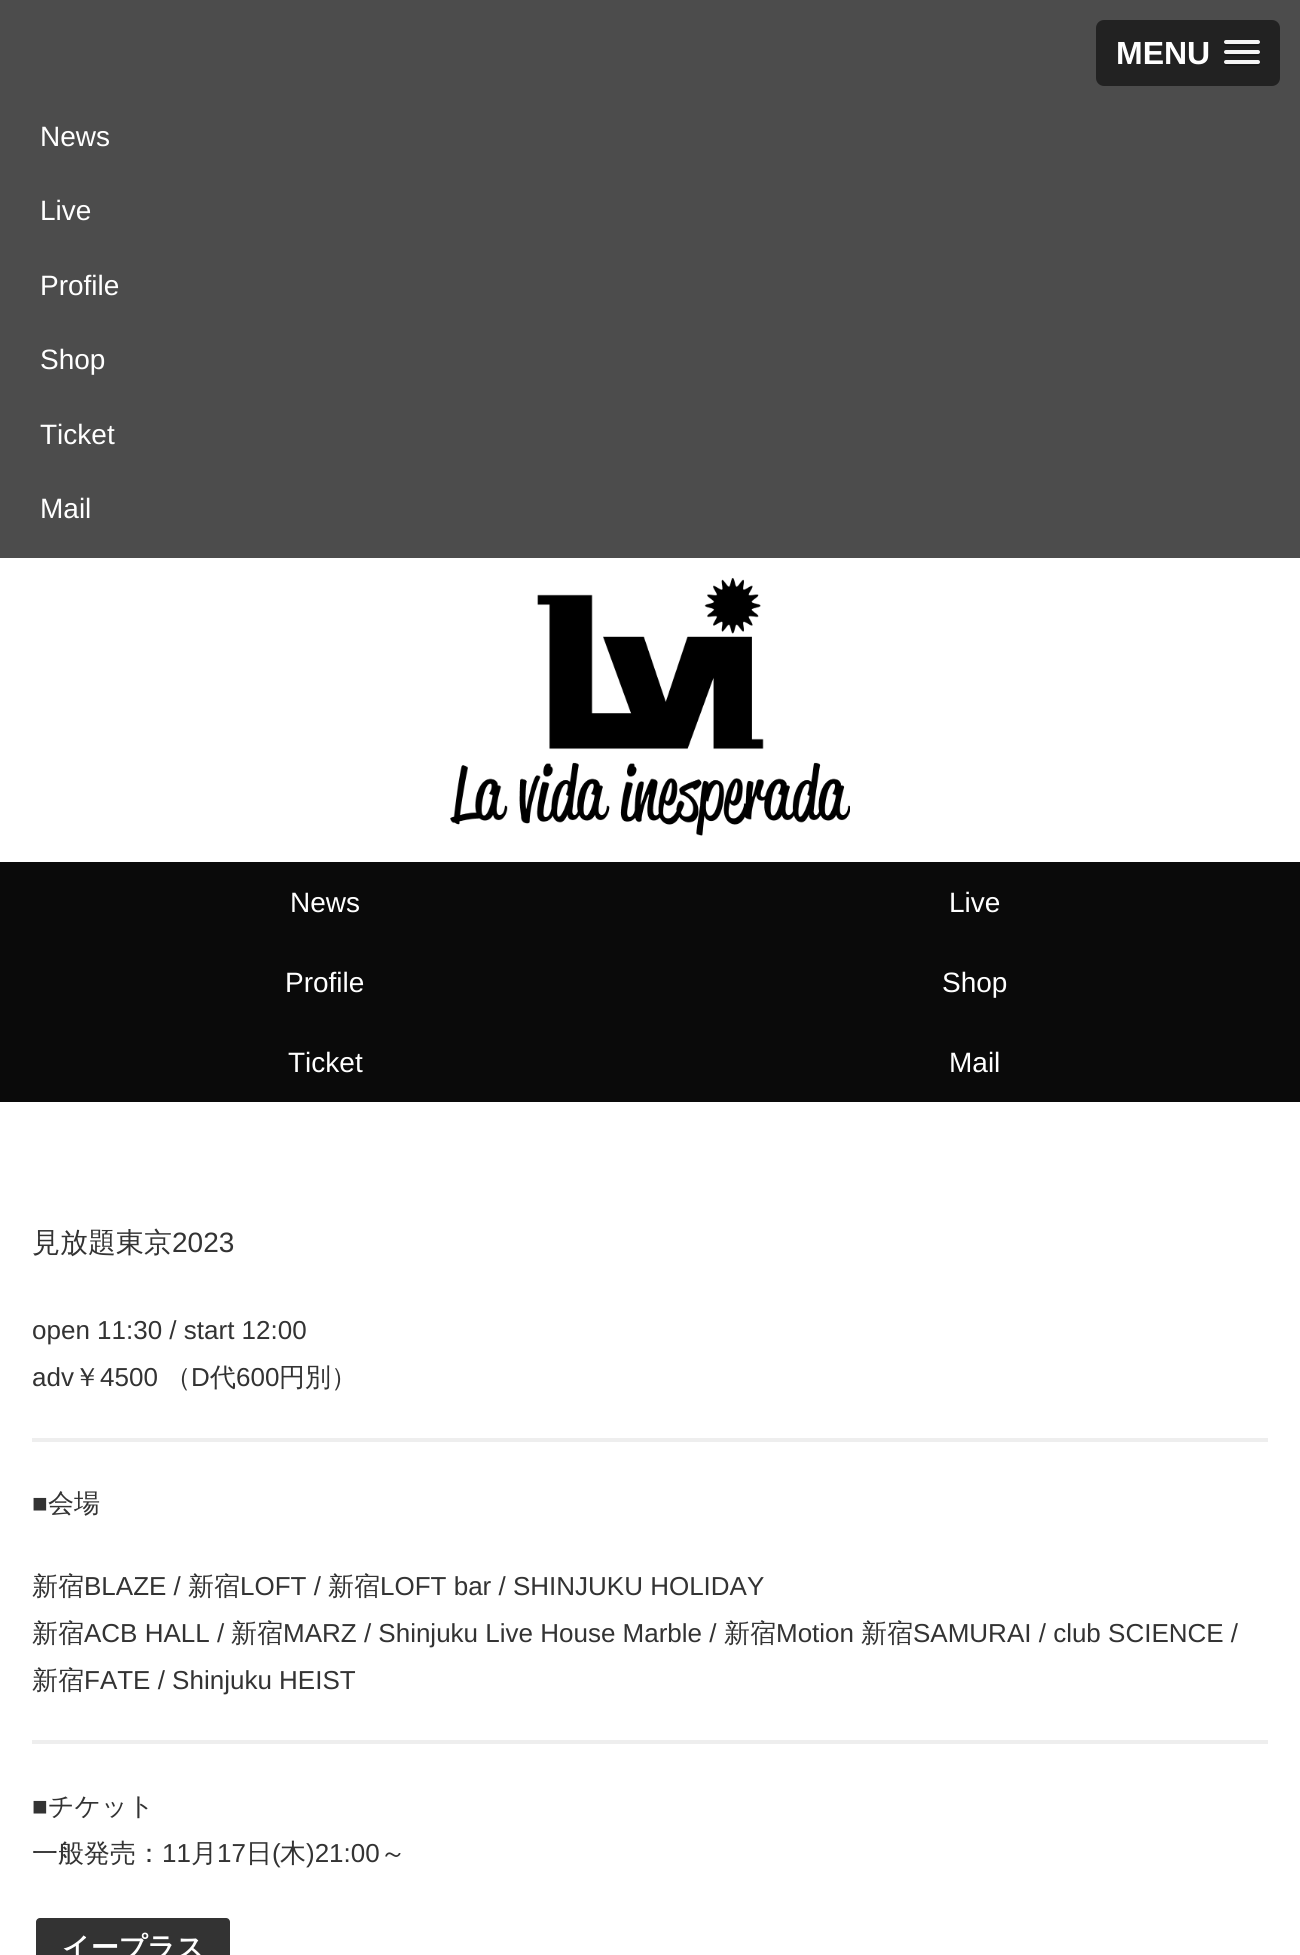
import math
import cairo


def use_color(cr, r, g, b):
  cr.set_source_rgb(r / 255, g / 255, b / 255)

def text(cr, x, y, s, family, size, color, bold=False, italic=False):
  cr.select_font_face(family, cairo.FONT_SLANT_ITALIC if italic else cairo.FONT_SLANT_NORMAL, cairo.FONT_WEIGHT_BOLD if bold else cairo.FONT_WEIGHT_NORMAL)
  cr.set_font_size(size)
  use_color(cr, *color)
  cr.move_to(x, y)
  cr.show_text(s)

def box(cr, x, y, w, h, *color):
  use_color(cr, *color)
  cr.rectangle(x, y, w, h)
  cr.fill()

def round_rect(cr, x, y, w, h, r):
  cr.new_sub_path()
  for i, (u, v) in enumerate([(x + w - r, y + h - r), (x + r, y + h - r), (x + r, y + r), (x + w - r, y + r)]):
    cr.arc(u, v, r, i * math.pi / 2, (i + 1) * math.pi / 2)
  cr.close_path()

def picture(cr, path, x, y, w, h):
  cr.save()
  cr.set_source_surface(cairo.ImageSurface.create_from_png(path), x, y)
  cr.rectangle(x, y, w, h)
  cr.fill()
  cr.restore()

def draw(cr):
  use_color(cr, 255, 255, 255)
  cr.paint()
  box(cr, 0, 0, 1300, 558, 76, 76, 76)
  use_color(cr, 34, 34, 34)
  round_rect(cr, 1096, 20, 184, 66, 8)
  cr.fill()
  use_color(cr, 26, 26, 26)
  cr.new_path()
  cr.move_to(1224.5, 43)
  cr.curve_to(1222, 47, 1231, 46, 1231.5, 46)
  cr.line_to(1252.5, 46)
  cr.curve_to(1253, 46, 1262, 47, 1259.5, 43)
  cr.curve_to(1259.5, 43.5, 1258.5, 44, 1258, 44)
  cr.line_to(1226, 44)
  cr.curve_to(1225.5, 44, 1224.5, 43.5, 1224.5, 43)
  cr.close_path()
  cr.fill()
  use_color(cr, 245, 245, 245)
  round_rect(cr, 1224, 40, 36, 4, 2)
  cr.fill()
  use_color(cr, 26, 26, 26)
  cr.new_path()
  cr.move_to(1224.5, 53)
  cr.curve_to(1222, 57, 1231, 56, 1231.5, 56)
  cr.line_to(1252.5, 56)
  cr.curve_to(1253, 56, 1262, 57, 1259.5, 53)
  cr.curve_to(1259.5, 53.5, 1258.5, 54, 1258, 54)
  cr.line_to(1226, 54)
  cr.curve_to(1225.5, 54, 1224.5, 53.5, 1224.5, 53)
  cr.close_path()
  cr.fill()
  use_color(cr, 245, 245, 245)
  round_rect(cr, 1224, 50, 36, 4, 2)
  cr.fill()
  use_color(cr, 26, 26, 26)
  cr.new_path()
  cr.move_to(1224.5, 63)
  cr.curve_to(1222, 67, 1231, 66, 1231.5, 66)
  cr.line_to(1252.5, 66)
  cr.curve_to(1253, 66, 1262, 67, 1259.5, 63)
  cr.curve_to(1259.5, 63.5, 1258.5, 64, 1258, 64)
  cr.line_to(1226, 64)
  cr.curve_to(1225.5, 64, 1224.5, 63.5, 1224.5, 63)
  cr.close_path()
  cr.fill()
  use_color(cr, 245, 245, 245)
  round_rect(cr, 1224, 60, 36, 4, 2)
  cr.fill()
  picture(cr, "img_01.png", 450, 578, 400, 258)
  box(cr, 0, 862, 1300, 240, 10, 10, 10)
  box(cr, 32, 1438, 1236, 4, 238, 238, 238)
  box(cr, 32, 1740, 1236, 4, 238, 238, 238)
  use_color(cr, 51, 51, 51)
  round_rect(cr, 36, 1918, 194, 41, 4)
  cr.fill()
  text(cr, 1116, 64, "MENU", "Liberation Sans", 32, (255, 255, 255), bold=True)
  text(cr, 40, 146, "News", "Liberation Sans", 28, (255, 255, 255))
  text(cr, 40, 220, "Live", "Liberation Sans", 28, (255, 255, 255))
  text(cr, 40, 295, "Profile", "Liberation Sans", 28, (255, 255, 255))
  text(cr, 40, 369, "Shop", "Liberation Sans", 28, (255, 255, 255))
  text(cr, 40, 444, "Ticket", "Liberation Sans", 28, (255, 255, 255))
  text(cr, 40, 518, "Mail", "Liberation Sans", 28, (255, 255, 255))
  text(cr, 290, 912, "News", "Liberation Sans", 28, (255, 255, 255))
  text(cr, 949, 912, "Live", "Liberation Sans", 28, (255, 255, 255))
  text(cr, 285, 992, "Profile", "Liberation Sans", 28, (255, 255, 255))
  text(cr, 942, 992, "Shop", "Liberation Sans", 28, (255, 255, 255))
  text(cr, 288, 1072, "Ticket", "Liberation Sans", 28, (255, 255, 255))
  text(cr, 949, 1072, "Mail", "Liberation Sans", 28, (255, 255, 255))
  text(cr, 32, 1252, "見放題東京", "WenQuanYi Zen Hei Medium", 28, (51, 51, 51))
  text(cr, 172, 1252, "2023", "Liberation Sans", 28, (51, 51, 51))
  text(cr, 32, 1339, "open 11:30 / start 12:00", "Liberation Sans", 26, (51, 51, 51))
  text(cr, 32, 1386, "adv", "Liberation Sans", 26, (51, 51, 51))
  text(cr, 74, 1386, "￥", "WenQuanYi Zen Hei Medium", 26, (51, 51, 51))
  text(cr, 100, 1386, "4500", "Liberation Sans", 26, (51, 51, 51))
  text(cr, 165, 1386, "（", "WenQuanYi Zen Hei Medium", 26, (51, 51, 51))
  text(cr, 191, 1386, "D", "Liberation Sans", 26, (51, 51, 51))
  text(cr, 210, 1386, "代", "WenQuanYi Zen Hei Medium", 26, (51, 51, 51))
  text(cr, 236, 1386, "600", "Liberation Sans", 26, (51, 51, 51))
  text(cr, 279, 1386, "円別）", "WenQuanYi Zen Hei Medium", 26, (51, 51, 51))
  text(cr, 32, 1512, "■", "Liberation Sans", 26, (51, 51, 51))
  text(cr, 48, 1512, "会場", "WenQuanYi Zen Hei Medium", 26, (51, 51, 51))
  text(cr, 32, 1595, "新宿", "WenQuanYi Zen Hei Medium", 26, (51, 51, 51))
  text(cr, 84, 1595, "BLAZE /", "Liberation Sans", 26, (51, 51, 51))
  text(cr, 188, 1595, "新宿", "WenQuanYi Zen Hei Medium", 26, (51, 51, 51))
  text(cr, 240, 1595, "LOFT /", "Liberation Sans", 26, (51, 51, 51))
  text(cr, 328, 1595, "新宿", "WenQuanYi Zen Hei Medium", 26, (51, 51, 51))
  text(cr, 380, 1595, "LOFT bar / SHINJUKU HOLIDAY", "Liberation Sans", 26, (51, 51, 51))
  text(cr, 32, 1642, "新宿", "WenQuanYi Zen Hei Medium", 26, (51, 51, 51))
  text(cr, 84, 1642, "ACB HALL /", "Liberation Sans", 26, (51, 51, 51))
  text(cr, 231, 1642, "新宿", "WenQuanYi Zen Hei Medium", 26, (51, 51, 51))
  text(cr, 283, 1642, "MARZ / Shinjuku Live House Marble /", "Liberation Sans", 26, (51, 51, 51))
  text(cr, 724, 1642, "新宿", "WenQuanYi Zen Hei Medium", 26, (51, 51, 51))
  text(cr, 776, 1642, "Motion", "Liberation Sans", 26, (51, 51, 51))
  text(cr, 861, 1642, "新宿", "WenQuanYi Zen Hei Medium", 26, (51, 51, 51))
  text(cr, 913, 1642, "SAMURAI / club SCIENCE /", "Liberation Sans", 26, (51, 51, 51))
  text(cr, 32, 1689, "新宿", "WenQuanYi Zen Hei Medium", 26, (51, 51, 51))
  text(cr, 84, 1689, "FATE / Shinjuku HEIST", "Liberation Sans", 26, (51, 51, 51))
  text(cr, 32, 1815, "■", "Liberation Sans", 26, (51, 51, 51))
  text(cr, 48, 1815, "チケット", "WenQuanYi Zen Hei Medium", 26, (51, 51, 51))
  text(cr, 32, 1862, "一般発売：", "WenQuanYi Zen Hei Medium", 26, (51, 51, 51))
  text(cr, 162, 1862, "11", "Liberation Sans", 26, (51, 51, 51))
  text(cr, 191, 1862, "月", "WenQuanYi Zen Hei Medium", 26, (51, 51, 51))
  text(cr, 217, 1862, "17", "Liberation Sans", 26, (51, 51, 51))
  text(cr, 246, 1862, "日", "WenQuanYi Zen Hei Medium", 26, (51, 51, 51))
  text(cr, 272, 1862, "(", "Liberation Sans", 26, (51, 51, 51))
  text(cr, 280, 1862, "木", "WenQuanYi Zen Hei Medium", 26, (51, 51, 51))
  text(cr, 306, 1862, ")21:00", "Liberation Sans", 26, (51, 51, 51))
  text(cr, 380, 1862, "～", "WenQuanYi Zen Hei Medium", 26, (51, 51, 51))
  text(cr, 62, 1957, "イープラス", "WenQuanYi Zen Hei", 28, (255, 255, 255), bold=True)


surface = cairo.ImageSurface(cairo.FORMAT_RGB24, 1300, 1955)
cr = cairo.Context(surface)
options = cairo.FontOptions()
options.set_hint_metrics(cairo.HINT_METRICS_OFF)
options.set_hint_style(cairo.HINT_STYLE_NONE)
cr.set_font_options(options)
cr.set_miter_limit(4)
draw(cr)
surface.write_to_png("out.png")
